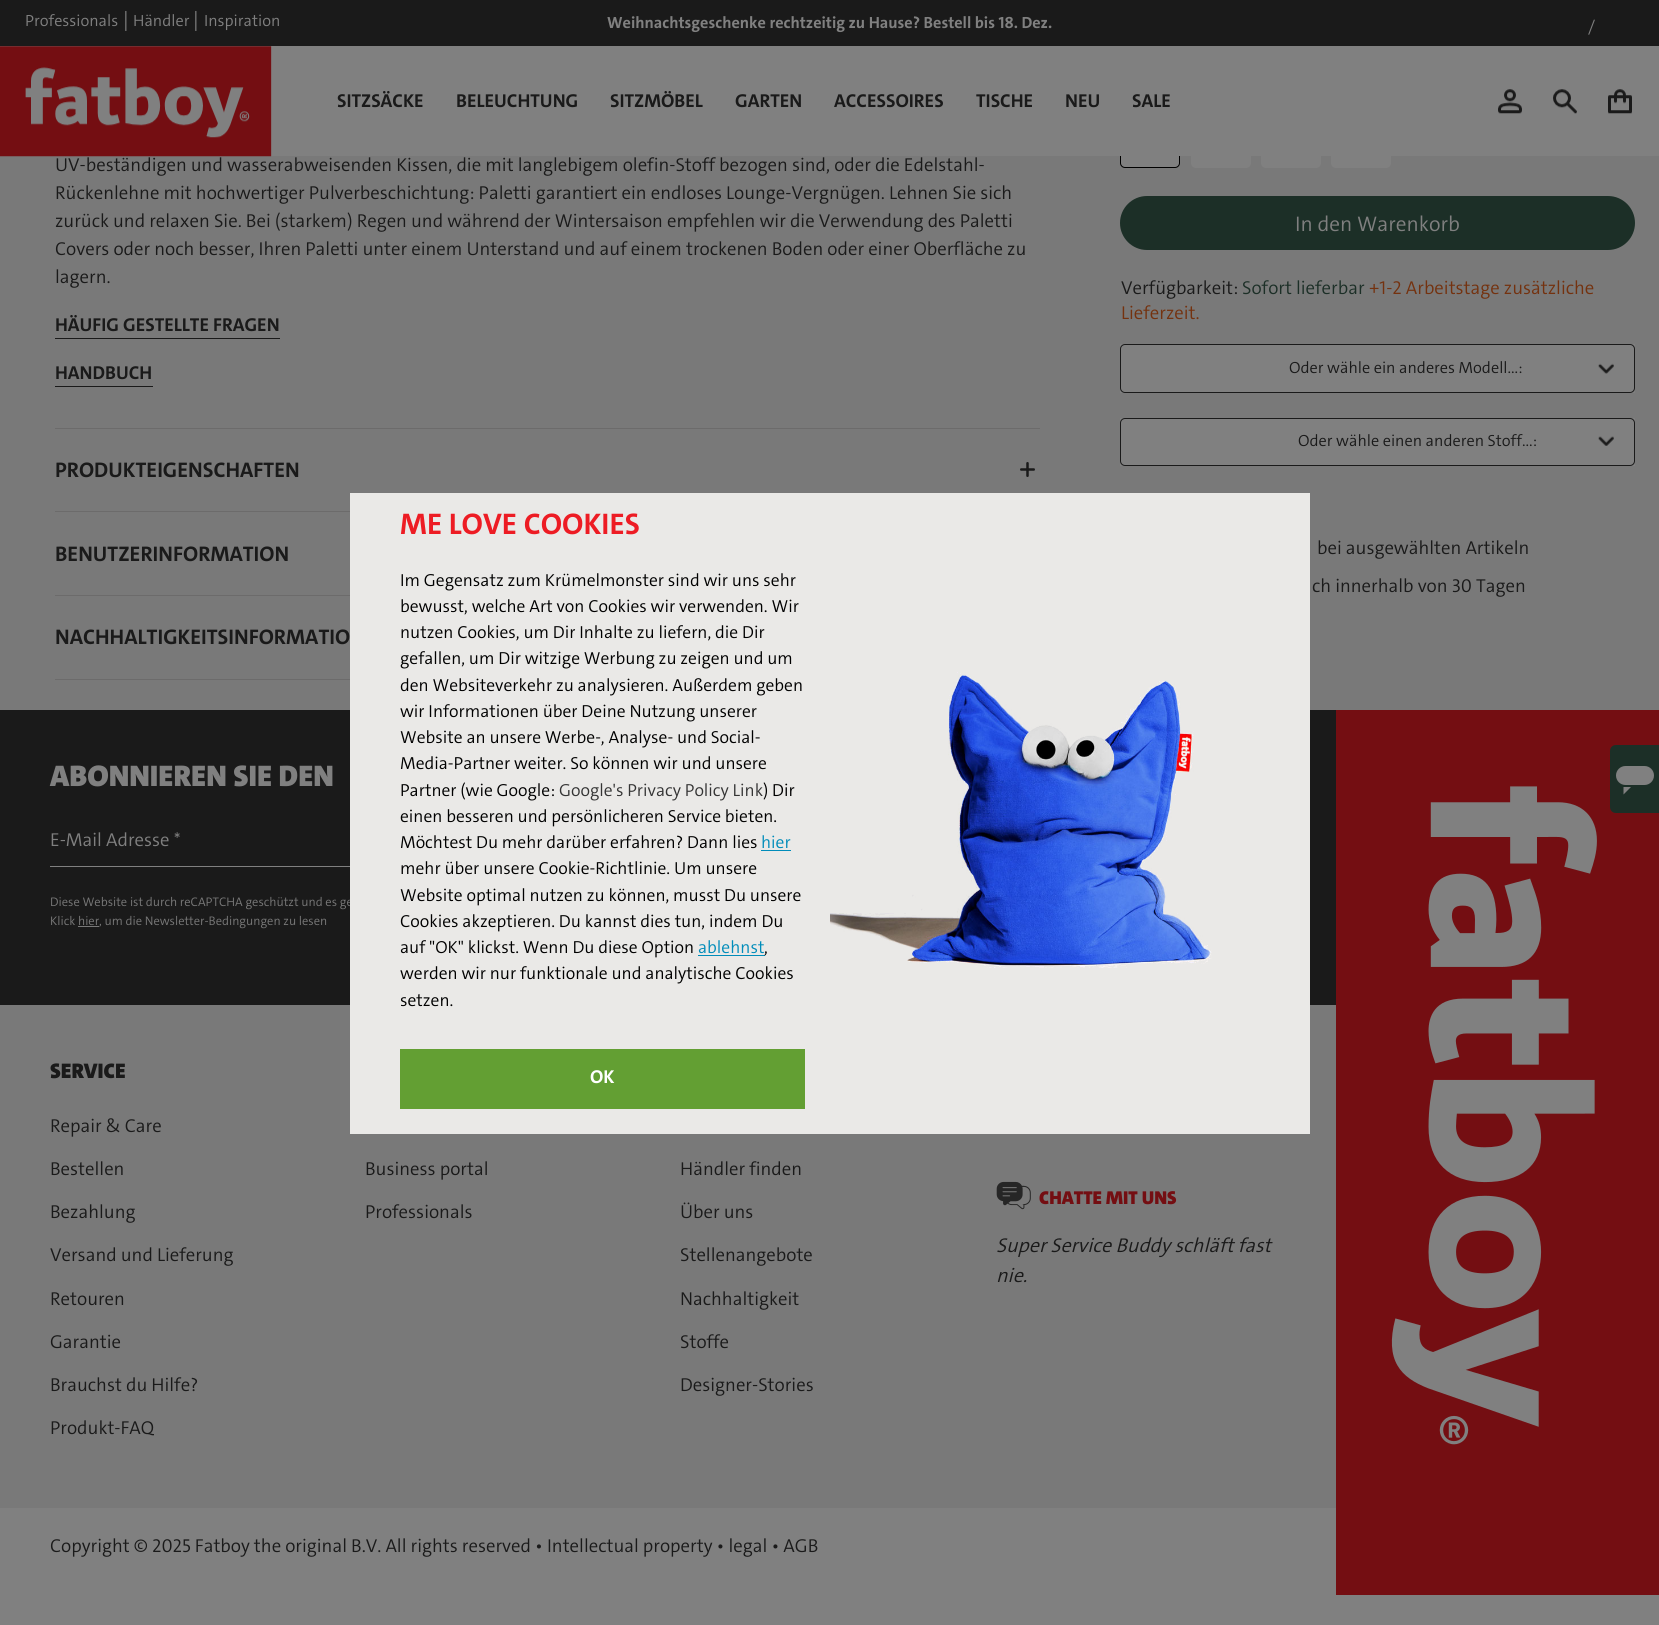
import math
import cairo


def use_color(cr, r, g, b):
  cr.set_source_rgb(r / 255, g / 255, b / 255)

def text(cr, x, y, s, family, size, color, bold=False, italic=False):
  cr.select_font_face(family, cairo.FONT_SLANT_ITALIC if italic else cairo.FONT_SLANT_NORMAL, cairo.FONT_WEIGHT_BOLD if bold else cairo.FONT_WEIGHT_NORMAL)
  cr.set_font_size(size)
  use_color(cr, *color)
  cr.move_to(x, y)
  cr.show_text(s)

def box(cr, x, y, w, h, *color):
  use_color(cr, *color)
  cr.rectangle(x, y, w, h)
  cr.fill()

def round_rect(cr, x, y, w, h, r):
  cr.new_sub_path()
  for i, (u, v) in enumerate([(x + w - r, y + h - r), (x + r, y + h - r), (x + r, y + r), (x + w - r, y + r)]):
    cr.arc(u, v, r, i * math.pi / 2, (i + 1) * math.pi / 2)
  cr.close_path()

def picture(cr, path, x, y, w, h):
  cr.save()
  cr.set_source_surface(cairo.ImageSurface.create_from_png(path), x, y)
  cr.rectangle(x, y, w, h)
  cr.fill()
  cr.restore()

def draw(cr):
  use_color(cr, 128, 128, 128)
  cr.paint()
  box(cr, 0, 156, 1659, 554, 121, 121, 121)
  use_color(cr, 128, 128, 128)
  round_rect(cr, 1120.5, 108.5, 59, 59, 4.5)
  cr.fill_preserve()
  use_color(cr, 0, 0, 0)
  cr.set_line_width(1)
  cr.stroke()
  box(cr, 1120, 108, 60, 48, 128, 128, 128)
  box(cr, 0, 0, 1659, 46, 26, 26, 26)
  picture(cr, "img_01.png", 0, 46, 272, 111)
  picture(cr, "img_02.png", 1498, 89, 24, 25)
  picture(cr, "img_03.png", 1553, 89, 24, 25)
  picture(cr, "img_04.png", 1608, 89, 24, 25)
  box(cr, 55, 428, 985, 1, 108, 107, 107)
  box(cr, 55, 338, 225, 1, 26, 26, 26)
  box(cr, 55, 386, 98, 1, 26, 26, 26)
  box(cr, 55, 511, 295, 1, 108, 107, 107)
  picture(cr, "img_05.png", 1020, 462, 15, 15)
  box(cr, 55, 595, 295, 1, 108, 107, 107)
  box(cr, 55, 679, 295, 1, 108, 107, 107)
  use_color(cr, 128, 128, 128)
  round_rect(cr, 1191, 108, 60, 60, 5)
  cr.fill()
  round_rect(cr, 1261, 108, 60, 60, 5)
  cr.fill()
  round_rect(cr, 1331, 108, 60, 60, 5)
  cr.fill()
  use_color(cr, 28, 47, 39)
  round_rect(cr, 1120, 196, 515, 54, 27)
  cr.fill()
  box(cr, 1120, 344, 515, 49, 128, 128, 128)
  round_rect(cr, 1120.5, 344.5, 514, 48, 4.5)
  use_color(cr, 26, 26, 26)
  cr.stroke()
  picture(cr, "img_06.png", 1598, 363, 16, 11)
  box(cr, 1120, 418, 515, 48, 128, 128, 128)
  round_rect(cr, 1120.5, 418.5, 514, 47, 4.5)
  use_color(cr, 26, 26, 26)
  cr.stroke()
  picture(cr, "img_07.png", 1598, 436, 16, 10)
  box(cr, 1336, 710, 323, 885, 116, 14, 18)
  picture(cr, "img_08.png", 1391, 786, 206, 659)
  box(cr, 0, 710, 1336, 295, 26, 26, 26)
  box(cr, 50, 866, 300, 1, 128, 128, 128)
  box(cr, 78, 926, 21, 1, 121, 121, 121)
  box(cr, 0, 1005, 1336, 503, 121, 121, 121)
  picture(cr, "img_09.png", 996, 1181, 35, 29)
  use_color(cr, 28, 47, 39)
  cr.new_path()
  cr.move_to(1616, 745)
  cr.line_to(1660, 745)
  cr.line_to(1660, 813)
  cr.line_to(1616, 813)
  cr.curve_to(1612.5, 813, 1610, 810.5, 1610, 807)
  cr.line_to(1610, 751)
  cr.curve_to(1610, 747.5, 1612.5, 745, 1616, 745)
  cr.close_path()
  cr.fill()
  use_color(cr, 128, 128, 128)
  round_rect(cr, 1616, 766, 38, 19, 9.5)
  cr.fill()
  cr.new_path()
  cr.move_to(1623.5, 787)
  cr.line_to(1631, 787)
  cr.line_to(1623.5, 794.5)
  cr.close_path()
  cr.fill()
  text(cr, 25, 26, "Professionals", "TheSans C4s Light", 16.25, (128, 128, 128))
  text(cr, 123, 26, "|", "TheSans C4s Light", 20, (128, 128, 128))
  text(cr, 133, 26, "Händler", "TheSans C4s Light", 16.25, (128, 128, 128))
  text(cr, 193, 26, "|", "TheSans C4s Light", 20, (128, 128, 128))
  text(cr, 204, 26, "Inspiration", "TheSans C4s Light", 16.25, (128, 128, 128))
  text(cr, 607, 28, "Weihnachtsgeschenke rechtzeitig zu Hause? Bestell bis 18. Dez.", "TheSans C4s", 16.25, (128, 128, 128), bold=True)
  text(cr, 1588, 32, "/", "TheSans C4s Light", 16.25, (128, 128, 128))
  text(cr, 337, 107, "SITZSÄCKE", "TheSans C4s", 18.75, (26, 26, 26), bold=True)
  text(cr, 456, 107, "BELEUCHTUNG", "TheSans C4s", 18.75, (26, 26, 26), bold=True)
  text(cr, 610, 107, "SITZMÖBEL", "TheSans C4s", 18.75, (26, 26, 26), bold=True)
  text(cr, 735, 107, "GARTEN", "TheSans C4s", 18.75, (26, 26, 26), bold=True)
  text(cr, 834, 107, "ACCESSOIRES", "TheSans C4s", 18.75, (26, 26, 26), bold=True)
  text(cr, 976, 107, "TISCHE", "TheSans C4s", 18.75, (26, 26, 26), bold=True)
  text(cr, 1065, 107, "NEU", "TheSans C4s", 18.75, (26, 26, 26), bold=True)
  text(cr, 1132, 107, "SALE", "TheSans C4s", 18.75, (26, 26, 26), bold=True)
  text(cr, 55, 171, "UV-beständigen und wasserabweisenden Kissen, die mit langlebigem olefin-Stoff bezogen sind, oder die Edelstahl-", "TheSans C4s Light", 18.75, (26, 26, 26))
  text(cr, 55, 199, "Rückenlehne mit hochwertiger Pulverbeschichtung: Paletti garantiert ein endloses Lounge-Vergnügen. Lehnen Sie sich", "TheSans C4s Light", 18.75, (26, 26, 26))
  text(cr, 55, 227, "zurück und relaxen Sie. Bei (starkem) Regen und während der Wintersaison empfehlen wir die Verwendung des Paletti", "TheSans C4s Light", 18.75, (26, 26, 26))
  text(cr, 55, 255, "Covers oder noch besser, Ihren Paletti unter einem Unterstand und auf einem trockenen Boden oder einer Oberfläche zu", "TheSans C4s Light", 18.75, (26, 26, 26))
  text(cr, 55, 283, "lagern.", "TheSans C4s Light", 18.75, (26, 26, 26))
  text(cr, 55, 331, "HÄUFIG GESTELLTE FRAGEN", "TheSans C4s", 18.75, (26, 26, 26), bold=True)
  text(cr, 55, 379, "HANDBUCH", "TheSans C4s", 18.75, (26, 26, 26), bold=True)
  text(cr, 55, 477, "PRODUKTEIGENSCHAFTEN", "TheSans C4s", 21.25, (26, 26, 26), bold=True)
  text(cr, 55, 561, "BENUTZERINFORMATION", "TheSans C4s", 21.25, (26, 26, 26), bold=True)
  text(cr, 55, 644, "NACHHALTIGKEITSINFORMATIO", "TheSans C4s", 21.25, (26, 26, 26), bold=True)
  text(cr, 1295, 231, "In den Warenkorb", "TheSans C4s Light", 21.25, (128, 128, 128))
  text(cr, 1121, 294, "Verfügbarkeit:", "TheSans C4s Light", 18.75, (26, 26, 26))
  text(cr, 1242, 294, "Sofort lieferbar", "TheSans C4s Light", 18.75, (28, 47, 39))
  text(cr, 1369, 294, "+1-2 Arbeitstage zusätzliche", "TheSans C4s Light", 18.75, (116, 50, 15))
  text(cr, 1121, 319, "Lieferzeit.", "TheSans C4s Light", 18.75, (116, 50, 15))
  text(cr, 1289, 373, "Oder wähle ein anderes Modell...:", "TheSans C4s Light", 16.25, (26, 26, 26))
  text(cr, 1298, 446, "Oder wähle einen anderen Stoff...:", "TheSans C4s Light", 16.25, (26, 26, 26))
  text(cr, 1317, 554, "bei ausgewählten Artikeln", "TheSans C4s Light", 18.75, (26, 26, 26))
  text(cr, 1312, 592, "ch innerhalb von 30 Tagen", "TheSans C4s Light", 18.75, (26, 26, 26))
  text(cr, 50, 786, "ABONNIEREN SIE DEN", "TheSans C4s Black", 30, (128, 128, 128))
  text(cr, 50, 846, "E-Mail Adresse *", "TheSans C4s Light", 18.75, (128, 128, 128))
  text(cr, 50, 906, "Diese Website ist durch reCAPTCHA geschützt und es ge", "TheSans C4s Light", 12.5, (121, 121, 121))
  text(cr, 50, 925, "Klick hier, um die Newsletter-Bedingungen zu lesen", "TheSans C4s Light", 12.5, (121, 121, 121))
  text(cr, 50, 1078, "SERVICE", "TheSans C4s Black", 21.25, (26, 26, 26))
  text(cr, 50, 1132, "Repair & Care", "TheSans C4s Light", 18.75, (26, 26, 26))
  text(cr, 50, 1175, "Bestellen", "TheSans C4s Light", 18.75, (26, 26, 26))
  text(cr, 50, 1218, "Bezahlung", "TheSans C4s Light", 18.75, (26, 26, 26))
  text(cr, 50, 1261, "Versand und Lieferung", "TheSans C4s Light", 18.75, (26, 26, 26))
  text(cr, 50, 1305, "Retouren", "TheSans C4s Light", 18.75, (26, 26, 26))
  text(cr, 50, 1348, "Garantie", "TheSans C4s Light", 18.75, (26, 26, 26))
  text(cr, 50, 1391, "Brauchst du Hilfe?", "TheSans C4s Light", 18.75, (26, 26, 26))
  text(cr, 50, 1434, "Produkt-FAQ", "TheSans C4s Light", 18.75, (26, 26, 26))
  text(cr, 365, 1175, "Business portal", "TheSans C4s Light", 18.75, (26, 26, 26))
  text(cr, 365, 1218, "Professionals", "TheSans C4s Light", 18.75, (26, 26, 26))
  text(cr, 680, 1175, "Händler finden", "TheSans C4s Light", 18.75, (26, 26, 26))
  text(cr, 680, 1218, "Über uns", "TheSans C4s Light", 18.75, (26, 26, 26))
  text(cr, 680, 1261, "Stellenangebote", "TheSans C4s Light", 18.75, (26, 26, 26))
  text(cr, 680, 1305, "Nachhaltigkeit", "TheSans C4s Light", 18.75, (26, 26, 26))
  text(cr, 680, 1348, "Stoffe", "TheSans C4s Light", 18.75, (26, 26, 26))
  text(cr, 680, 1391, "Designer-Stories", "TheSans C4s Light", 18.75, (26, 26, 26))
  text(cr, 1039, 1204, "CHATTE MIT UNS", "TheSans C4s Black", 18.75, (116, 14, 18))
  text(cr, 996, 1252, "Super Service Buddy schläft fast", "TheSans C4s Light", 20, (26, 26, 26), italic=True)
  text(cr, 996, 1282, "nie.", "TheSans C4s Light", 20, (26, 26, 26), italic=True)
  text(cr, 50, 1552, "Copyright © 2025 Fatboy the original B.V. All rights reserved • Intellectual property • legal • AGB", "TheSans C4s Light", 18.75, (26, 26, 26))
  box(cr, 350, 493, 960, 641, 234, 233, 231)
  text(cr, 400, 534, "ME LOVE COOKIES", "TheSans C4s", 30, (237, 28, 36), bold=True)
  text(cr, 400, 586, "Im Gegensatz zum Krümelmonster sind wir uns sehr", "TheSans C4s Light", 17.5, (0, 0, 0))
  text(cr, 400, 612, "bewusst, welche Art von Cookies wir verwenden. Wir", "TheSans C4s Light", 17.5, (0, 0, 0))
  text(cr, 400, 638, "nutzen Cookies, um Dir Inhalte zu liefern, die Dir", "TheSans C4s Light", 17.5, (0, 0, 0))
  text(cr, 400, 664, "gefallen, um Dir witzige Werbung zu zeigen und um", "TheSans C4s Light", 17.5, (0, 0, 0))
  text(cr, 400, 691, "den Websiteverkehr zu analysieren. Außerdem geben", "TheSans C4s Light", 17.5, (0, 0, 0))
  text(cr, 400, 717, "wir Informationen über Deine Nutzung unserer", "TheSans C4s Light", 17.5, (0, 0, 0))
  text(cr, 400, 743, "Website an unsere Werbe-, Analyse- und Social-", "TheSans C4s Light", 17.5, (0, 0, 0))
  text(cr, 400, 769, "Media-Partner weiter. So können wir und unsere", "TheSans C4s Light", 17.5, (0, 0, 0))
  text(cr, 400, 796, "Partner (wie Google:", "TheSans C4s Light", 17.5, (0, 0, 0))
  text(cr, 559, 796, "Google's Privacy Policy Link", "TheSans C4s Light", 17.5, (52, 52, 52))
  text(cr, 763, 796, ") Dir", "TheSans C4s Light", 17.5, (0, 0, 0))
  text(cr, 400, 822, "einen besseren und persönlicheren Service bieten.", "TheSans C4s Light", 17.5, (0, 0, 0))
  text(cr, 400, 848, "Möchtest Du mehr darüber erfahren? Dann lies", "TheSans C4s Light", 17.5, (0, 0, 0))
  text(cr, 761, 848, "hier", "TheSans C4s Light", 17.5, (0, 140, 186))
  box(cr, 761, 850, 30, 1, 0, 140, 186)
  text(cr, 400, 874, "mehr über unsere Cookie-Richtlinie. Um unsere", "TheSans C4s Light", 17.5, (0, 0, 0))
  text(cr, 400, 901, "Website optimal nutzen zu können, musst Du unsere", "TheSans C4s Light", 17.5, (0, 0, 0))
  text(cr, 400, 927, "Cookies akzeptieren. Du kannst dies tun, indem Du", "TheSans C4s Light", 17.5, (0, 0, 0))
  text(cr, 400, 953, "auf \"OK\" klickst. Wenn Du diese Option", "TheSans C4s Light", 17.5, (0, 0, 0))
  text(cr, 698, 953, "ablehnst", "TheSans C4s Light", 17.5, (0, 140, 186))
  box(cr, 698, 955, 67, 1, 0, 140, 186)
  text(cr, 764, 953, ",", "TheSans C4s Light", 17.5, (0, 0, 0))
  text(cr, 400, 979, "werden wir nur funktionale und analytische Cookies", "TheSans C4s Light", 17.5, (0, 0, 0))
  text(cr, 400, 1006, "setzen.", "TheSans C4s Light", 17.5, (0, 0, 0))
  box(cr, 400, 1049, 405, 60, 99, 159, 51)
  text(cr, 590, 1083, "OK", "TheSans C4s", 18.75, (255, 255, 255), bold=True)
  picture(cr, "img_10.png", 830, 672, 382, 296)


surface = cairo.ImageSurface(cairo.FORMAT_RGB24, 1659, 1625)
cr = cairo.Context(surface)
options = cairo.FontOptions()
options.set_hint_metrics(cairo.HINT_METRICS_OFF)
options.set_hint_style(cairo.HINT_STYLE_NONE)
cr.set_font_options(options)
cr.set_miter_limit(4)
draw(cr)
surface.write_to_png("out.png")
